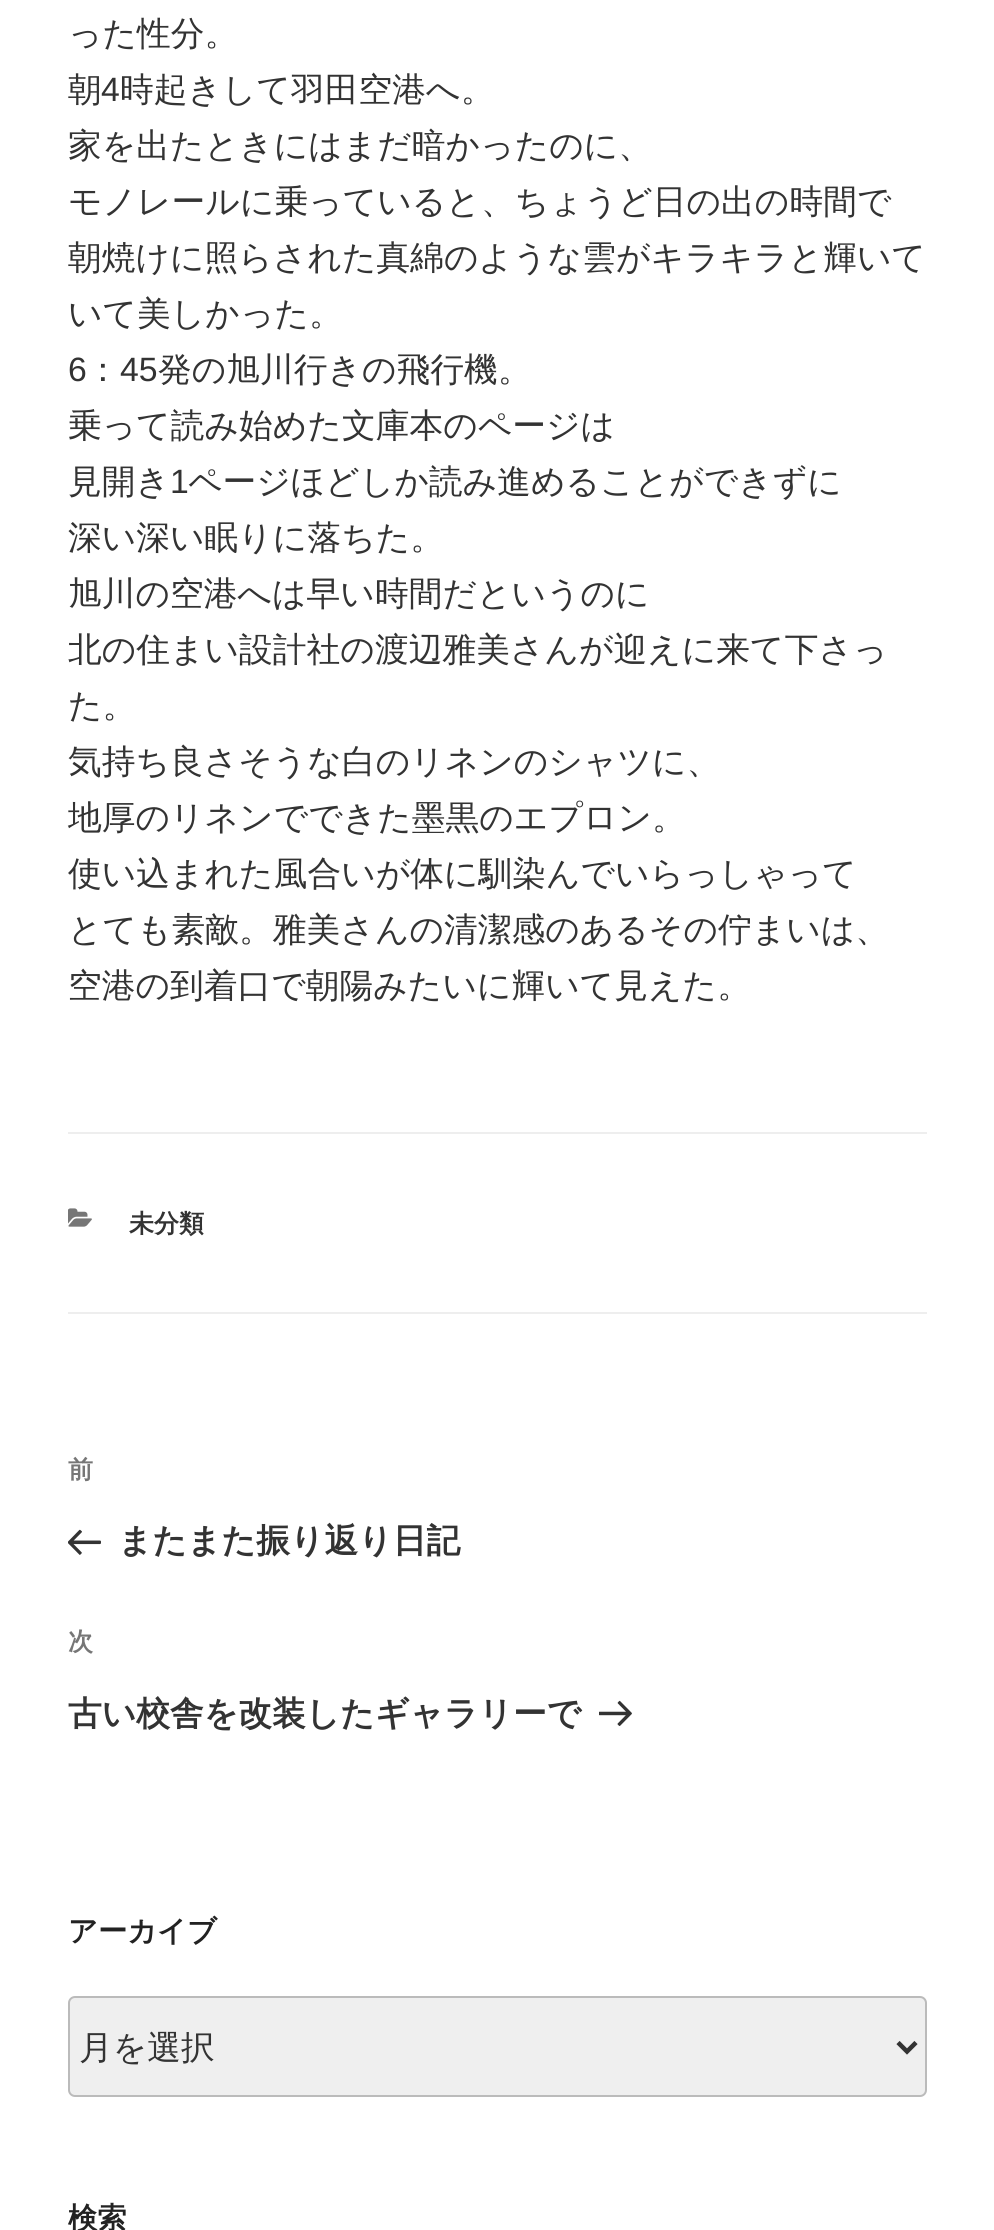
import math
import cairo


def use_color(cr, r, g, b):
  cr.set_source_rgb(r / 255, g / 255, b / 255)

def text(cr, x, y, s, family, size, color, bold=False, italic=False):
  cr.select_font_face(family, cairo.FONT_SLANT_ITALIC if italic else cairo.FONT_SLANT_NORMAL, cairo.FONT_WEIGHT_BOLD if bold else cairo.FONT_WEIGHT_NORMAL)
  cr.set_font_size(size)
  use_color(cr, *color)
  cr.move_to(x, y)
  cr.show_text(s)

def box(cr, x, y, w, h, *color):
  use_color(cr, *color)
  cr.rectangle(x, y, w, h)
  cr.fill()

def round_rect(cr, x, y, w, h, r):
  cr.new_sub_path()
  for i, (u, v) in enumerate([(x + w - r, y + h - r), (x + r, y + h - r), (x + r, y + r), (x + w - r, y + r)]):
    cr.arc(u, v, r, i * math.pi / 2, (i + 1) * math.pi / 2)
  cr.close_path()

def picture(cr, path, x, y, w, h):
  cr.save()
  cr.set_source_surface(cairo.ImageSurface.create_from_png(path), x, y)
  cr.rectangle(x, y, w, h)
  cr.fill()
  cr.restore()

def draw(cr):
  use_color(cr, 255, 255, 255)
  cr.paint()
  box(cr, 68, 1132, 859, 2, 238, 238, 238)
  box(cr, 68, 1312, 859, 2, 238, 238, 238)
  picture(cr, "img_01.png", 68, 1208, 24, 19)
  picture(cr, "img_02.png", 68, 1529, 33, 26)
  picture(cr, "img_03.png", 599, 1700, 33, 26)
  use_color(cr, 239, 239, 239)
  round_rect(cr, 69, 1997, 857, 99, 6)
  cr.fill_preserve()
  use_color(cr, 187, 187, 187)
  cr.stroke()
  cr.new_path()
  cr.move_to(898, 2042.5)
  cr.line_to(907, 2051.5)
  cr.line_to(916, 2042.5)
  use_color(cr, 51, 51, 51)
  cr.set_line_width(4.5)
  cr.stroke()
  text(cr, 68, 45, "った性分。", "WenQuanYi Zen Hei Medium", 33.75, (51, 51, 51))
  text(cr, 68, 101, "朝", "WenQuanYi Zen Hei Medium", 33.75, (51, 51, 51))
  text(cr, 101, 101, "4", "Liberation Sans", 33.75, (51, 51, 51))
  text(cr, 120, 101, "時起きして羽田空港へ。", "WenQuanYi Zen Hei Medium", 33.75, (51, 51, 51))
  text(cr, 68, 157, "家を出たときにはまだ暗かったのに、", "WenQuanYi Zen Hei Medium", 33.75, (51, 51, 51))
  text(cr, 68, 213, "モノレールに乗っていると、ちょうど日の出の時間で", "WenQuanYi Zen Hei Medium", 33.75, (51, 51, 51))
  text(cr, 68, 269, "朝焼けに照らされた真綿のような雲がキラキラと輝いて", "WenQuanYi Zen Hei Medium", 33.75, (51, 51, 51))
  text(cr, 68, 325, "いて美しかった。", "WenQuanYi Zen Hei Medium", 33.75, (51, 51, 51))
  text(cr, 68, 381, "6", "Liberation Sans", 33.75, (51, 51, 51))
  text(cr, 86, 381, "：", "WenQuanYi Zen Hei Medium", 33.75, (51, 51, 51))
  text(cr, 120, 381, "45", "Liberation Sans", 33.75, (51, 51, 51))
  text(cr, 158, 381, "発の旭川行きの飛行機。", "WenQuanYi Zen Hei Medium", 33.75, (51, 51, 51))
  text(cr, 68, 437, "乗って読み始めた文庫本のページは", "WenQuanYi Zen Hei Medium", 33.75, (51, 51, 51))
  text(cr, 68, 493, "見開き", "WenQuanYi Zen Hei Medium", 33.75, (51, 51, 51))
  text(cr, 170, 493, "1", "Liberation Sans", 33.75, (51, 51, 51))
  text(cr, 188, 493, "ページほどしか読み進めることができずに", "WenQuanYi Zen Hei Medium", 33.75, (51, 51, 51))
  text(cr, 68, 549, "深い深い眠りに落ちた。", "WenQuanYi Zen Hei Medium", 33.75, (51, 51, 51))
  text(cr, 68, 605, "旭川の空港へは早い時間だというのに", "WenQuanYi Zen Hei Medium", 33.75, (51, 51, 51))
  text(cr, 68, 661, "北の住まい設計社の渡辺雅美さんが迎えに来て下さっ", "WenQuanYi Zen Hei Medium", 33.75, (51, 51, 51))
  text(cr, 68, 717, "た。", "WenQuanYi Zen Hei Medium", 33.75, (51, 51, 51))
  text(cr, 68, 773, "気持ち良さそうな白のリネンのシャツに、", "WenQuanYi Zen Hei Medium", 33.75, (51, 51, 51))
  text(cr, 68, 829, "地厚のリネンでできた墨黒のエプロン。", "WenQuanYi Zen Hei Medium", 33.75, (51, 51, 51))
  text(cr, 68, 885, "使い込まれた風合いが体に馴染んでいらっしゃって", "WenQuanYi Zen Hei Medium", 33.75, (51, 51, 51))
  text(cr, 68, 941, "とても素敵。雅美さんの清潔感のあるその佇まいは、", "WenQuanYi Zen Hei Medium", 33.75, (51, 51, 51))
  text(cr, 68, 997, "空港の到着口で朝陽みたいに輝いて見えた。", "WenQuanYi Zen Hei Medium", 33.75, (51, 51, 51))
  text(cr, 129, 1232, "未分類", "WenQuanYi Zen Hei", 25, (51, 51, 51), bold=True)
  text(cr, 68, 1478, "前", "WenQuanYi Zen Hei", 25, (118, 118, 118), bold=True)
  text(cr, 118, 1552, "またまた振り返り日記", "WenQuanYi Zen Hei", 33.75, (51, 51, 51), bold=True)
  text(cr, 68, 1650, "次", "WenQuanYi Zen Hei", 25, (118, 118, 118), bold=True)
  text(cr, 68, 1725, "古い校舎を改装したギャラリーで", "WenQuanYi Zen Hei", 33.75, (51, 51, 51), bold=True)
  text(cr, 68, 1941, "アーカイブ", "WenQuanYi Zen Hei", 29.25, (34, 34, 34), bold=True)
  text(cr, 79, 2059, "月を選択", "WenQuanYi Zen Hei Medium", 33.75, (51, 51, 51))
  text(cr, 68, 2228, "検索", "WenQuanYi Zen Hei", 29.25, (34, 34, 34), bold=True)


surface = cairo.ImageSurface(cairo.FORMAT_RGB24, 994, 2230)
cr = cairo.Context(surface)
options = cairo.FontOptions()
options.set_hint_metrics(cairo.HINT_METRICS_OFF)
options.set_hint_style(cairo.HINT_STYLE_NONE)
cr.set_font_options(options)
cr.set_miter_limit(4)
draw(cr)
surface.write_to_png("out.png")
